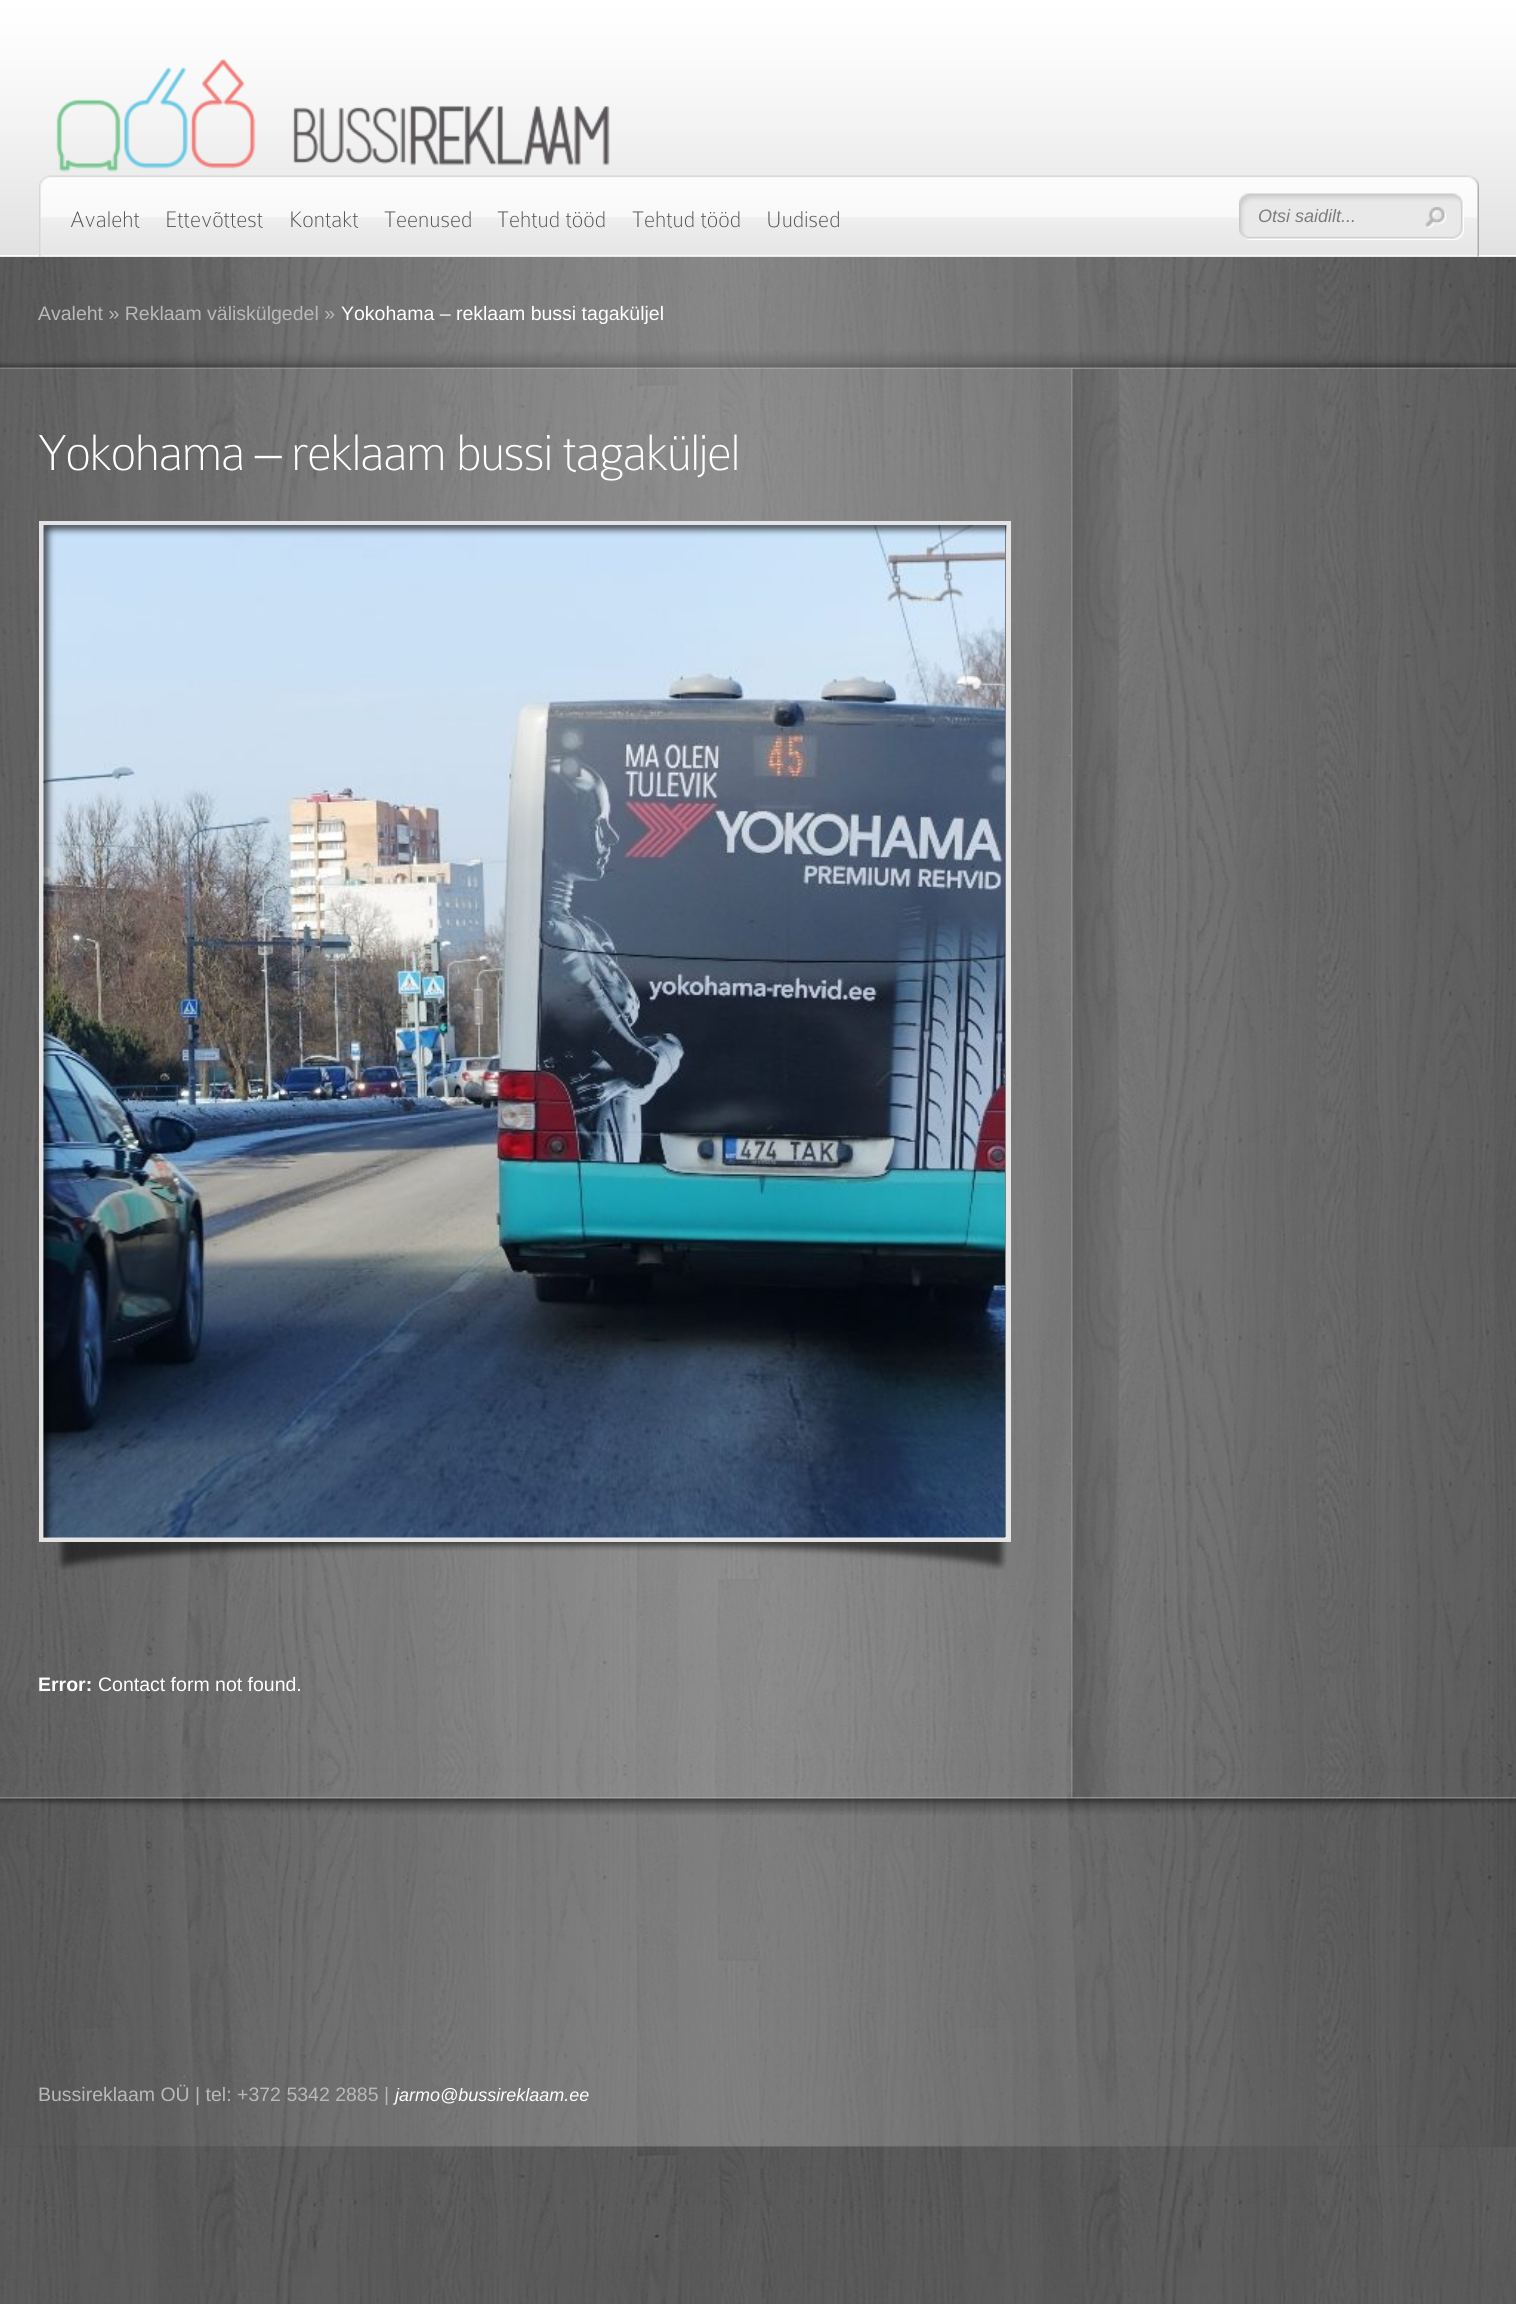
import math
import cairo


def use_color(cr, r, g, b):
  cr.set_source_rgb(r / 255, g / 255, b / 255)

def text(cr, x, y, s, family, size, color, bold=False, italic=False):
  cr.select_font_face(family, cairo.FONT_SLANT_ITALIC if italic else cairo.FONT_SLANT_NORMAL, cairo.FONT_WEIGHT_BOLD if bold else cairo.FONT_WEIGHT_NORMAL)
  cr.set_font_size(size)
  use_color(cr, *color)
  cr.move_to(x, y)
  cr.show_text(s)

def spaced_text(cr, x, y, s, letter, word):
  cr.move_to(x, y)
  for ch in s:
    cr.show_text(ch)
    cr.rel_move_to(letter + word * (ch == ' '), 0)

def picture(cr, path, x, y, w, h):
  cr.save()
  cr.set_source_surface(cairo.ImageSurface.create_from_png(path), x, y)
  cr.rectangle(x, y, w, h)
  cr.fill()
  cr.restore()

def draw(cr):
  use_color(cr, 255, 255, 255)
  cr.paint()
  picture(cr, "img_01.png", 0, 257, 1516, 2047)
  picture(cr, "img_02.png", 0, 0, 1516, 255)
  picture(cr, "img_03.png", 56, 58, 554, 114)
  picture(cr, "img_04.png", 39, 175, 1440, 82)
  picture(cr, "img_05.png", 1239, 193, 225, 47)
  picture(cr, "img_06.png", 1425, 207, 21, 21)
  picture(cr, "img_07.png", 0, 363, 1516, 6)
  picture(cr, "img_08.png", 0, 351, 1516, 18)
  cr.set_source_rgba(0, 0, 0, 0.09)
  cr.rectangle(0, 256, 1516, 113)
  cr.fill()
  picture(cr, "img_09.png", 0, 257, 1494, 112)
  picture(cr, "img_10.png", 0, 369, 1494, 1778)
  picture(cr, "img_11.png", 1071, 369, 48, 1428)
  cr.rectangle(41.5, 523.5, 967, 1016)
  use_color(cr, 227, 227, 227)
  cr.set_line_width(5)
  cr.stroke()
  picture(cr, "img_12.png", 43, 525, 962, 1013)
  picture(cr, "img_13.png", 43, 525, 964, 1013)
  picture(cr, "img_14.png", 57, 1542, 312, 28)
  picture(cr, "img_15.png", 369, 1542, 327, 9)
  picture(cr, "img_16.png", 696, 1542, 311, 28)
  cr.set_source_rgba(0, 0, 0, 0.09)
  cr.rectangle(0, 1797, 1516, 350)
  cr.fill()
  picture(cr, "img_17.png", 0, 1797, 1516, 7)
  picture(cr, "img_18.png", 0, 1797, 1516, 18)
  text(cr, 70, 227, "Avaleht", "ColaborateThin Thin", 24, (83, 83, 83))
  text(cr, 165, 227, "Ettevõttest", "ColaborateThin Thin", 24, (83, 83, 83))
  text(cr, 289, 227, "Kontakt", "ColaborateThin Thin", 24, (83, 83, 83))
  text(cr, 384, 227, "Teenused", "ColaborateThin Thin", 24, (83, 83, 83))
  text(cr, 497, 227, "Tehtud tööd", "ColaborateThin Thin", 24, (83, 83, 83))
  text(cr, 632, 227, "Tehtud tööd", "ColaborateThin Thin", 24, (83, 83, 83))
  text(cr, 766, 227, "Uudised", "ColaborateThin Thin", 24, (83, 83, 83))
  cr.save()
  cr.rectangle(1259, 206, 157, 21)
  cr.clip()
  text(cr, 1258, 222, "Otsi saidilt...", "Liberation Sans", 18, (125, 125, 125), italic=True)
  cr.restore()
  text(cr, 38, 320, "Avaleht » Reklaam väliskülgedel »", "Liberation Sans", 19.5, (185, 185, 185))
  text(cr, 341, 320, "Yokohama – reklaam bussi tagaküljel", "Liberation Sans", 19.5, (255, 255, 255))
  cr.select_font_face("ColaborateThin Thin")
  cr.set_font_size(54)
  spaced_text(cr, 38, 470, "Yokohama – reklaam bussi tagaküljel", -1.5, 0)
  text(cr, 38, 1691, "Error:", "Liberation Sans", 19.5, (255, 255, 255), bold=True)
  text(cr, 98, 1691, "Contact form not found.", "Liberation Sans", 19.5, (255, 255, 255))
  text(cr, 38, 2101, "Bussireklaam OÜ | tel: +372 5342 2885 |", "Liberation Sans", 19.5, (185, 185, 185))
  text(cr, 395, 2101, "jarmo@bussireklaam.ee", "Liberation Sans", 18, (255, 255, 255), italic=True)


surface = cairo.ImageSurface(cairo.FORMAT_RGB24, 1516, 2304)
cr = cairo.Context(surface)
options = cairo.FontOptions()
options.set_hint_metrics(cairo.HINT_METRICS_OFF)
options.set_hint_style(cairo.HINT_STYLE_NONE)
cr.set_font_options(options)
cr.set_miter_limit(4)
draw(cr)
surface.write_to_png("out.png")
